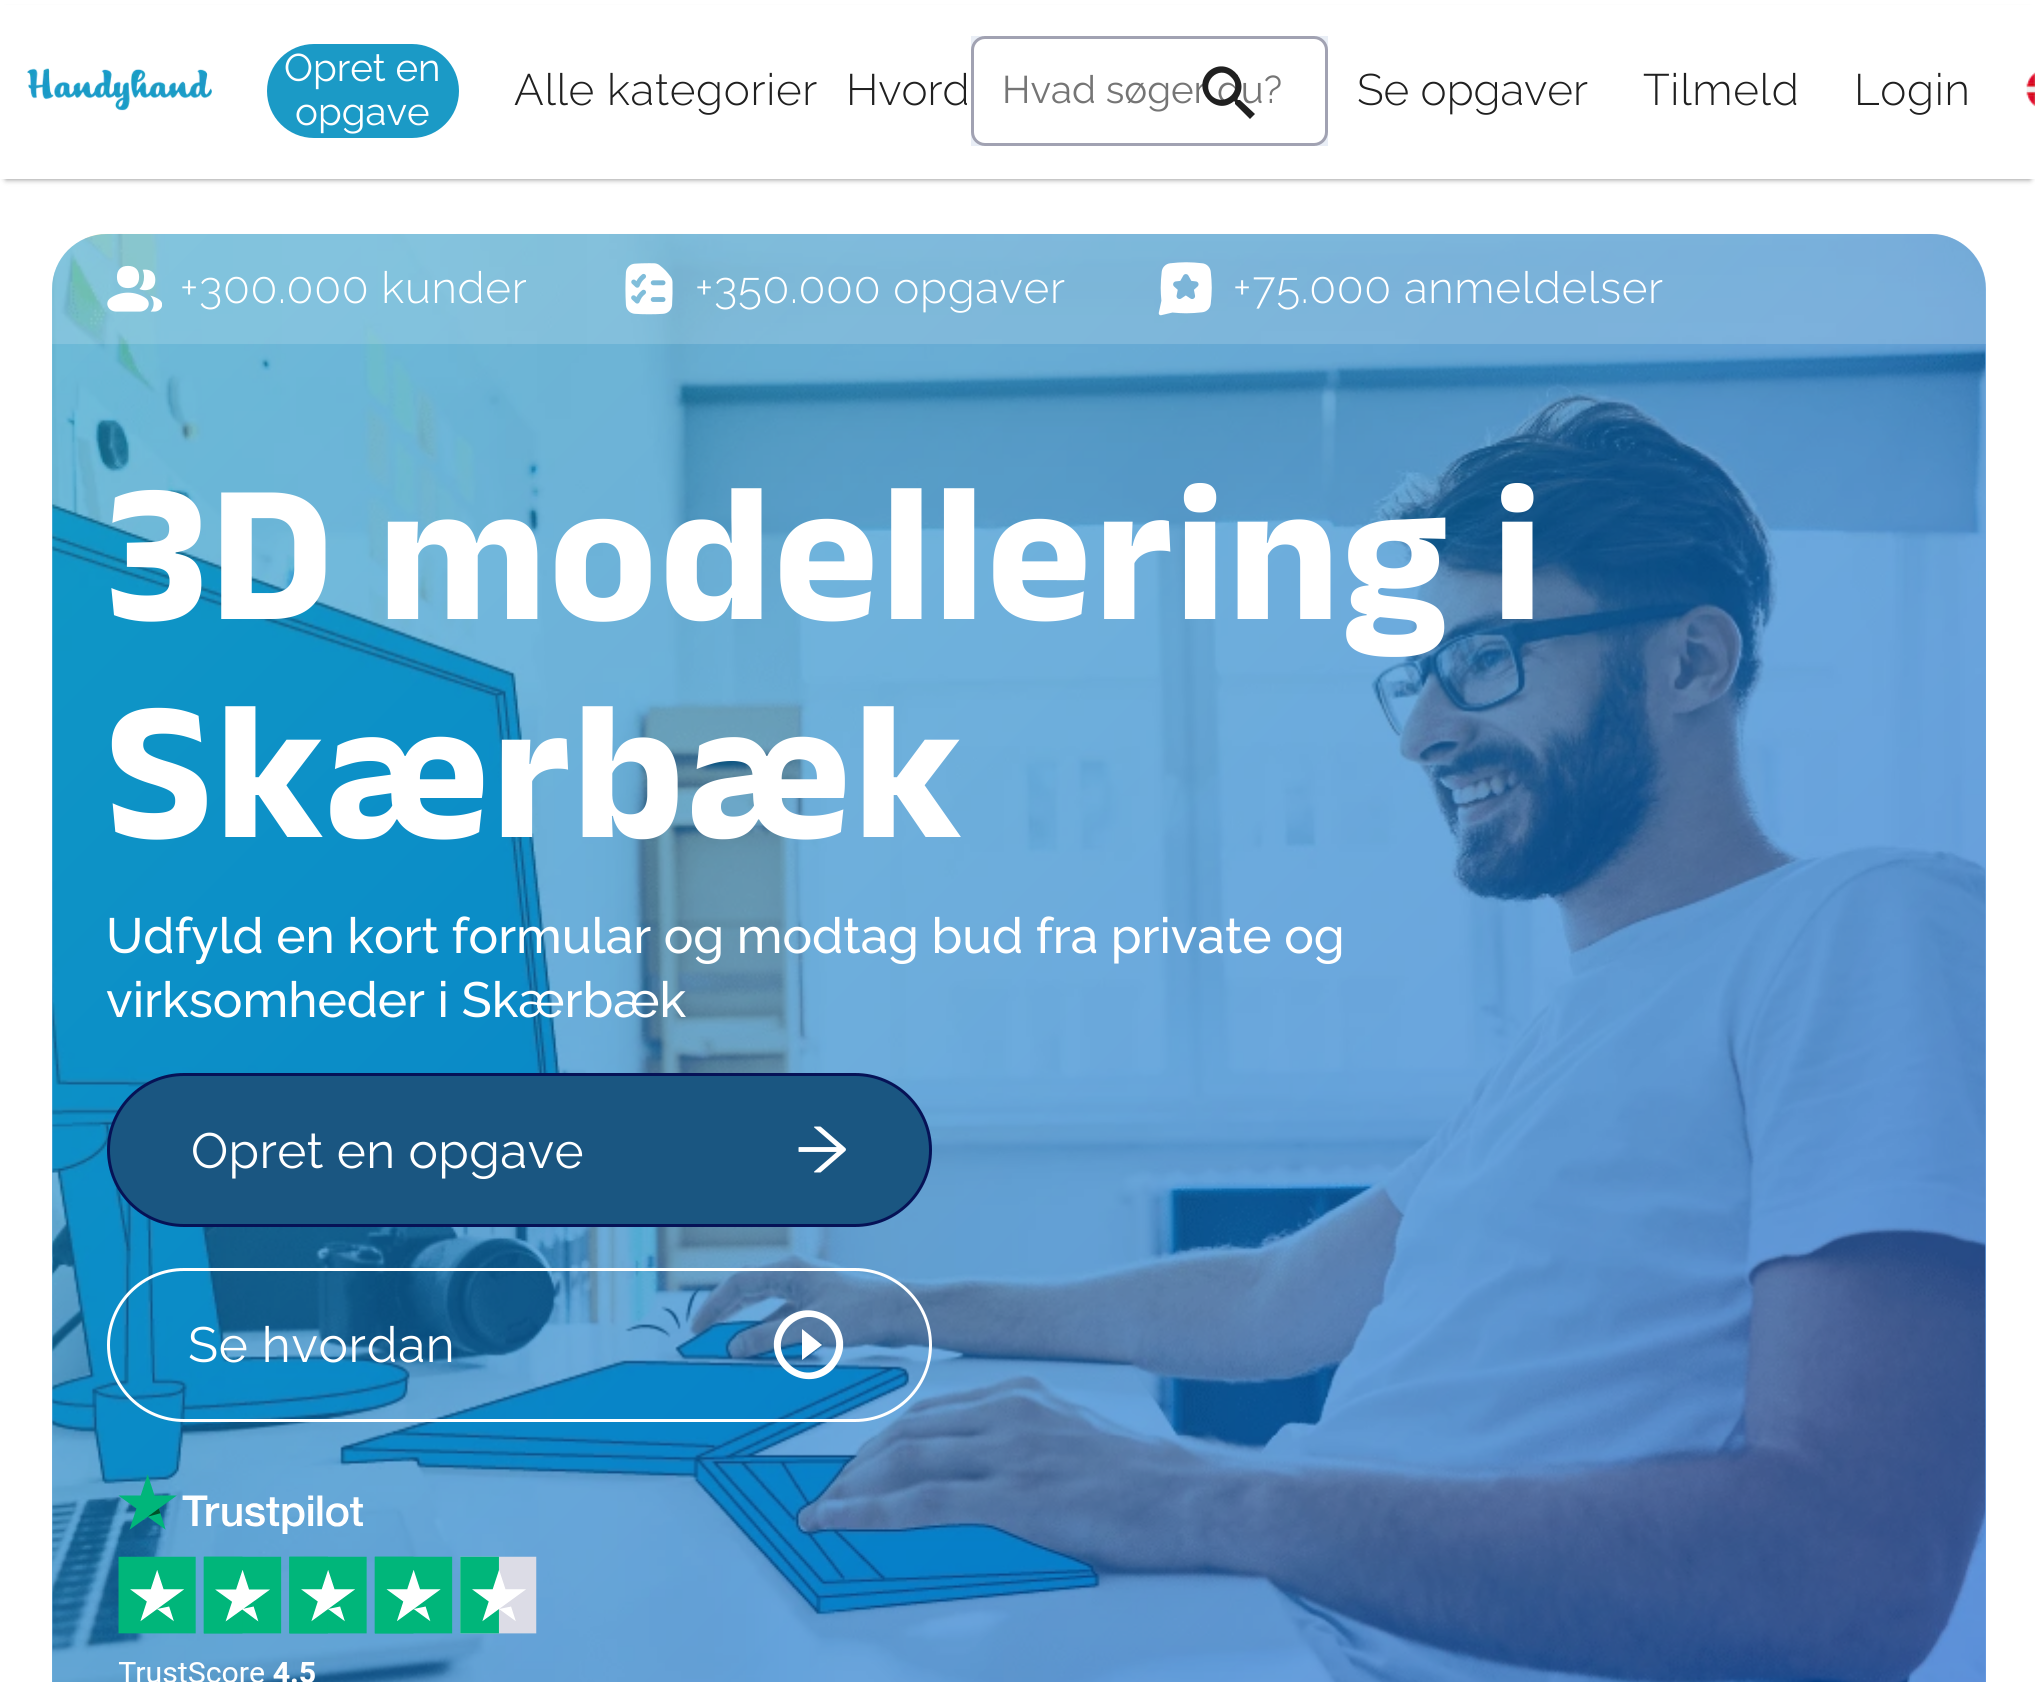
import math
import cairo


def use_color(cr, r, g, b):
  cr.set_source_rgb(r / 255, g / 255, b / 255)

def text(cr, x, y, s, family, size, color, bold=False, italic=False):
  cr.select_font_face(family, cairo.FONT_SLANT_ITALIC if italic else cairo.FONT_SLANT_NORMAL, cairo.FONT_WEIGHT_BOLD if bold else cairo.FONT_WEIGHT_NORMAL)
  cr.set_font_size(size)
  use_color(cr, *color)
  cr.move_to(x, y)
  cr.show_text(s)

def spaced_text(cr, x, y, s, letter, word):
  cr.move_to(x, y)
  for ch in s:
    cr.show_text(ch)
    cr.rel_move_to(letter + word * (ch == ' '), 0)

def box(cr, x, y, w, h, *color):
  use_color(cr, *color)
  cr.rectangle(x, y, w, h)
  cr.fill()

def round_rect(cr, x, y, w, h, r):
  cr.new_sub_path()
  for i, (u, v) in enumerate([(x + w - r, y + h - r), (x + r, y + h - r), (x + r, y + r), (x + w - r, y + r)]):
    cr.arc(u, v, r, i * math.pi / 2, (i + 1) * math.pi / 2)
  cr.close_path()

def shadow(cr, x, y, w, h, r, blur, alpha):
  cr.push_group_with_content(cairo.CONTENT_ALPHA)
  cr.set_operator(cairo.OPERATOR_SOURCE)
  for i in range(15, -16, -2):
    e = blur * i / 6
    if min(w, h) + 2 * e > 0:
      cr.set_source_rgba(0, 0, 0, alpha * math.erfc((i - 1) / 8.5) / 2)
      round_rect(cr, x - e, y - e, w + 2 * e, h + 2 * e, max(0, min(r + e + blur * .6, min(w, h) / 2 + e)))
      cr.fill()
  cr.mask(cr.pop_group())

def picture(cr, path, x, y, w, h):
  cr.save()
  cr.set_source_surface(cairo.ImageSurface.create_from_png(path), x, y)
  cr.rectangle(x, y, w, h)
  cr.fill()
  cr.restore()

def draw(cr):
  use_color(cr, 255, 255, 255)
  cr.paint()
  use_color(cr, 0, 0, 0)
  shadow(cr, 6, 11, 2024, 168, 0, 3, 0.5)
  box(cr, 0, 5, 2035, 174, 255, 255, 255)
  picture(cr, "img_01.png", 27, 68, 185, 43)
  use_color(cr, 27, 154, 198)
  round_rect(cr, 267, 44, 192, 94, 47)
  cr.fill()
  box(cr, 971, 36, 357, 110, 233, 238, 246)
  use_color(cr, 255, 255, 255)
  round_rect(cr, 972.5, 37.5, 354, 107, 12.5)
  cr.fill_preserve()
  use_color(cr, 161, 162, 178)
  cr.set_line_width(3)
  cr.stroke()
  picture(cr, "img_02.png", 2026, 72, 9, 35)
  picture(cr, "img_06.png", 52, 233, 1934, 1449)
  gradient = cairo.LinearGradient(135, 151, 1902, 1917)
  gradient.add_color_stop_rgba(0, 0.106, 0.604, 0.776, 0.6)
  gradient.add_color_stop_rgba(1, 0, 0.322, 0.8, 0.6)
  cr.set_source(gradient)
  cr.new_path()
  cr.move_to(107, 234)
  cr.line_to(1931, 234)
  cr.curve_to(1961.5, 234, 1986, 258.5, 1986, 289)
  cr.line_to(1986, 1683)
  cr.line_to(52, 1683)
  cr.line_to(52, 289)
  cr.curve_to(52, 258.5, 76.5, 234, 107, 234)
  cr.close_path()
  cr.fill()
  cr.set_source_rgba(1, 1, 1, 0.15)
  cr.new_path()
  cr.move_to(107, 234)
  cr.line_to(1931, 234)
  cr.curve_to(1961.5, 234, 1986, 258.5, 1986, 289)
  cr.line_to(1986, 344)
  cr.line_to(52, 344)
  cr.line_to(52, 289)
  cr.curve_to(52, 258.5, 76.5, 234, 107, 234)
  cr.close_path()
  cr.fill()
  picture(cr, "img_03.png", 107, 265, 55, 47)
  picture(cr, "img_04.png", 625, 263, 48, 52)
  picture(cr, "img_05.png", 1158, 262, 54, 54)
  use_color(cr, 26, 86, 129)
  round_rect(cr, 108.5, 1074.5, 822, 151, 75.5)
  cr.fill_preserve()
  use_color(cr, 6, 18, 86)
  cr.stroke()
  picture(cr, "img_07.png", 798, 1126, 48, 47)
  round_rect(cr, 108.5, 1269.5, 822, 151, 75.5)
  use_color(cr, 255, 255, 255)
  cr.stroke()
  cr.new_path()
  cr.move_to(789, 1364)
  cr.curve_to(815, 1390, 853, 1351, 828, 1325)
  cr.curve_to(802, 1300, 764, 1339, 789, 1364)
  cr.close_path()
  cr.move_to(784, 1320)
  cr.curve_to(807, 1298, 846, 1316, 843, 1348)
  cr.curve_to(842, 1356, 838, 1363, 833, 1369)
  cr.curve_to(810, 1392, 771, 1373, 774, 1341)
  cr.curve_to(775, 1333, 779, 1326, 784, 1320)
  cr.close_path()
  cr.move_to(802, 1360)
  cr.line_to(802, 1329)
  cr.line_to(822, 1345)
  cr.close_path()
  cr.fill()
  picture(cr, "img_08.png", 118, 1474, 419, 208)
  text(cr, 284, 81, "Opret en", "Raleway", 38.5, (255, 255, 255))
  text(cr, 295, 125, "opgave", "Raleway", 38.5, (255, 255, 255))
  cr.select_font_face("Raleway Light")
  cr.set_font_size(44)
  use_color(cr, 32, 32, 32)
  spaced_text(cr, 514, 105, "Alle kategorier", 0.7, 0)
  text(cr, 846, 105, "Hvord", "Raleway Light", 44, (32, 32, 32))
  text(cr, 1002, 103, "Hvad søger du?", "Raleway", 38.5, (117, 117, 117))
  use_color(cr, 32, 32, 32)
  cr.new_path()
  cr.move_to(1212, 96)
  cr.curve_to(1225, 108, 1244, 89, 1231, 77)
  cr.curve_to(1219, 64, 1200, 83, 1212, 96)
  cr.close_path()
  cr.move_to(1240, 100)
  cr.line_to(1255, 114)
  cr.line_to(1250, 119)
  cr.line_to(1235, 104)
  cr.line_to(1235, 102)
  cr.line_to(1234, 101)
  cr.curve_to(1216, 117, 1191, 90, 1208, 72)
  cr.curve_to(1226, 55, 1252, 80, 1237, 99)
  cr.line_to(1237, 100)
  cr.close_path()
  cr.fill()
  text(cr, 1357, 105, "Se opgaver", "Raleway Light", 44, (32, 32, 32))
  spaced_text(cr, 1643, 105, "Tilmeld", 0.7, 0)
  spaced_text(cr, 1854, 105, "Login", 0.7, 0)
  use_color(cr, 255, 255, 255)
  spaced_text(cr, 180, 303, "+300.000 kunder", 0.7, 0)
  spaced_text(cr, 695, 303, "+350.000 opgaver", 0.7, 0)
  spaced_text(cr, 1233, 303, "+75.000 anmeldelser", 0.7, 0)
  cr.select_font_face("Anek Latin", cairo.FONT_SLANT_NORMAL, cairo.FONT_WEIGHT_BOLD)
  cr.set_font_size(198)
  spaced_text(cr, 106, 619, "3D modellering i", 2.25, 0)
  spaced_text(cr, 106, 837, "Skærbæk", 2.25, 0)
  text(cr, 106, 953, "Udfyld en kort formular og modtag bud fra private og", "Raleway Medium", 49.5, (255, 255, 255))
  text(cr, 106, 1017, "virksomheder i Skærbæk", "Raleway Medium", 49.5, (255, 255, 255))
  cr.select_font_face("Raleway")
  spaced_text(cr, 191, 1168, "Opret en opgave", 0.4, 0)
  spaced_text(cr, 188, 1362, "Se hvordan", 0.7, 0)


surface = cairo.ImageSurface(cairo.FORMAT_RGB24, 2035, 1682)
cr = cairo.Context(surface)
options = cairo.FontOptions()
options.set_hint_metrics(cairo.HINT_METRICS_OFF)
options.set_hint_style(cairo.HINT_STYLE_NONE)
cr.set_font_options(options)
cr.set_miter_limit(4)
draw(cr)
surface.write_to_png("out.png")
